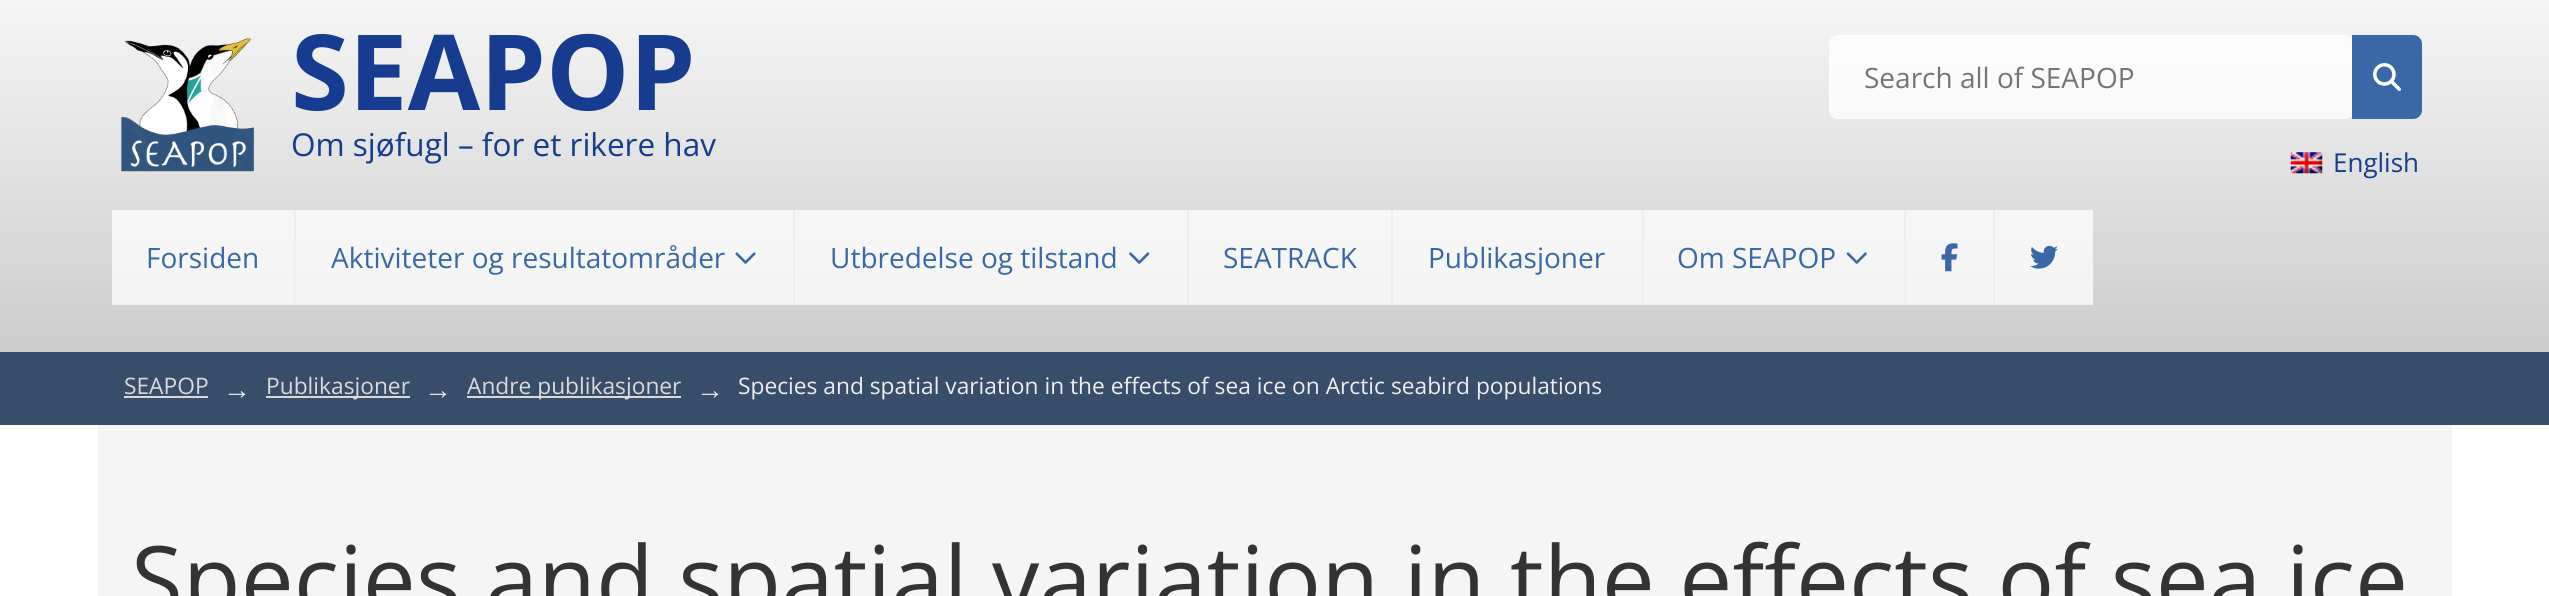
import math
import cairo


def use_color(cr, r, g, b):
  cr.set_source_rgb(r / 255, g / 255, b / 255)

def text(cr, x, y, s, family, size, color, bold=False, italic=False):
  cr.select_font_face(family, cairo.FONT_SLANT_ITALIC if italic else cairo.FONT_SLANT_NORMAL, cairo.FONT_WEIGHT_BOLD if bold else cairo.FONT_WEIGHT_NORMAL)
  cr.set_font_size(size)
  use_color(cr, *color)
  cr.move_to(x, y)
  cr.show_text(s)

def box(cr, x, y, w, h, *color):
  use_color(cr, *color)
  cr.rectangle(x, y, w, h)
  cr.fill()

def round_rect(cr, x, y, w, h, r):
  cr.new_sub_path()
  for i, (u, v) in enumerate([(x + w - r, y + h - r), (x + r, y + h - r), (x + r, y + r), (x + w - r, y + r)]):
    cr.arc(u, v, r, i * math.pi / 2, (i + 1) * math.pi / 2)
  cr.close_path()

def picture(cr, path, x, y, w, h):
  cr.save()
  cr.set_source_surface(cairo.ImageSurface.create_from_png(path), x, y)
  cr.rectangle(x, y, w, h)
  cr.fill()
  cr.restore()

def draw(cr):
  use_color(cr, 255, 255, 255)
  cr.paint()
  gradient = cairo.LinearGradient(1275, 0, 1275, 352)
  gradient.add_color_stop_rgba(0, 0.961, 0.961, 0.961, 1)
  gradient.add_color_stop_rgba(1, 0.8, 0.8, 0.8, 1)
  cr.set_source(gradient)
  cr.rectangle(0, 0, 2549, 352)
  cr.fill()
  gradient = cairo.LinearGradient(1275, 0, 1275, 352)
  gradient.add_color_stop_rgba(0, 0.992, 0.992, 0.992, 1)
  gradient.add_color_stop_rgba(1, 0.949, 0.949, 0.949, 1)
  cr.set_source(gradient)
  cr.rectangle(112, 210, 1981, 95)
  cr.fill()
  picture(cr, "img_01.png", 121, 38, 133, 134)
  cr.set_source_rgba(1, 1, 1, 0.8)
  round_rect(cr, 1829, 35, 525, 84, 9)
  cr.fill()
  use_color(cr, 58, 104, 166)
  cr.new_path()
  cr.move_to(2352, 35)
  cr.line_to(2413, 35)
  cr.curve_to(2418, 35, 2422, 39, 2422, 44)
  cr.line_to(2422, 110)
  cr.curve_to(2422, 115, 2418, 119, 2413, 119)
  cr.line_to(2352, 119)
  cr.close_path()
  cr.fill()
  picture(cr, "img_02.png", 2373, 63, 28, 28)
  picture(cr, "img_03.png", 2290, 152, 33, 22)
  box(cr, 294, 210, 2, 95, 238, 238, 238)
  picture(cr, "img_04.png", 735, 252, 21, 12)
  box(cr, 793, 210, 2, 95, 238, 238, 238)
  picture(cr, "img_05.png", 1129, 252, 21, 12)
  box(cr, 1187, 210, 2, 95, 238, 238, 238)
  box(cr, 1391, 210, 2, 95, 238, 238, 238)
  box(cr, 1642, 210, 2, 95, 238, 238, 238)
  picture(cr, "img_06.png", 1846, 252, 21, 12)
  box(cr, 1904, 210, 2, 95, 238, 238, 238)
  picture(cr, "img_07.png", 1941, 243, 17, 29)
  box(cr, 1993, 210, 2, 95, 238, 238, 238)
  picture(cr, "img_08.png", 2030, 245, 28, 24)
  box(cr, 0, 352, 2549, 73, 56, 77, 106)
  box(cr, 124, 396, 84, 2, 220, 217, 217)
  box(cr, 266, 396, 144, 2, 220, 217, 217)
  box(cr, 467, 396, 214, 2, 220, 217, 217)
  box(cr, 98, 425, 2354, 171, 245, 245, 245)
  text(cr, 291, 110, "SEAPOP", "Open Sans", 105, (23, 59, 143), bold=True)
  text(cr, 291, 156, "Om sjøfugl – for et rikere hav", "Open Sans", 31.5, (23, 59, 143))
  text(cr, 1864, 88, "Search all of SEAPOP", "Open Sans", 28, (117, 117, 117))
  text(cr, 2333, 172, "English", "Open Sans", 26, (23, 59, 143))
  text(cr, 146, 268, "Forsiden", "Open Sans", 28, (58, 104, 166))
  text(cr, 331, 268, "Aktiviteter og resultatområder", "Open Sans", 28, (58, 104, 166))
  text(cr, 830, 268, "Utbredelse og tilstand", "Open Sans", 28, (58, 104, 166))
  text(cr, 1223, 268, "SEATRACK", "Open Sans", 28, (58, 104, 166))
  text(cr, 1428, 268, "Publikasjoner", "Open Sans", 28, (58, 104, 166))
  text(cr, 1677, 268, "Om SEAPOP", "Open Sans", 28, (58, 104, 166))
  text(cr, 124, 394, "SEAPOP", "Open Sans", 22.75, (220, 217, 217))
  text(cr, 223, 399, "→", "Liberation Sans", 28, (238, 238, 238))
  text(cr, 266, 394, "Publikasjoner", "Open Sans", 22.75, (220, 217, 217))
  text(cr, 424, 399, "→", "Liberation Sans", 28, (238, 238, 238))
  text(cr, 467, 394, "Andre publikasjoner", "Open Sans", 22.75, (220, 217, 217))
  text(cr, 696, 399, "→", "Liberation Sans", 28, (238, 238, 238))
  text(cr, 738, 394, "Species and spatial variation in the effects of sea ice on Arctic seabird populations", "Open Sans", 22.75, (238, 238, 238))
  text(cr, 131, 614, "Species and spatial variation in the effects of sea ice", "Open Sans", 94.5, (51, 51, 51))


surface = cairo.ImageSurface(cairo.FORMAT_RGB24, 2549, 596)
cr = cairo.Context(surface)
options = cairo.FontOptions()
options.set_hint_metrics(cairo.HINT_METRICS_OFF)
options.set_hint_style(cairo.HINT_STYLE_NONE)
cr.set_font_options(options)
cr.set_miter_limit(4)
draw(cr)
surface.write_to_png("out.png")
